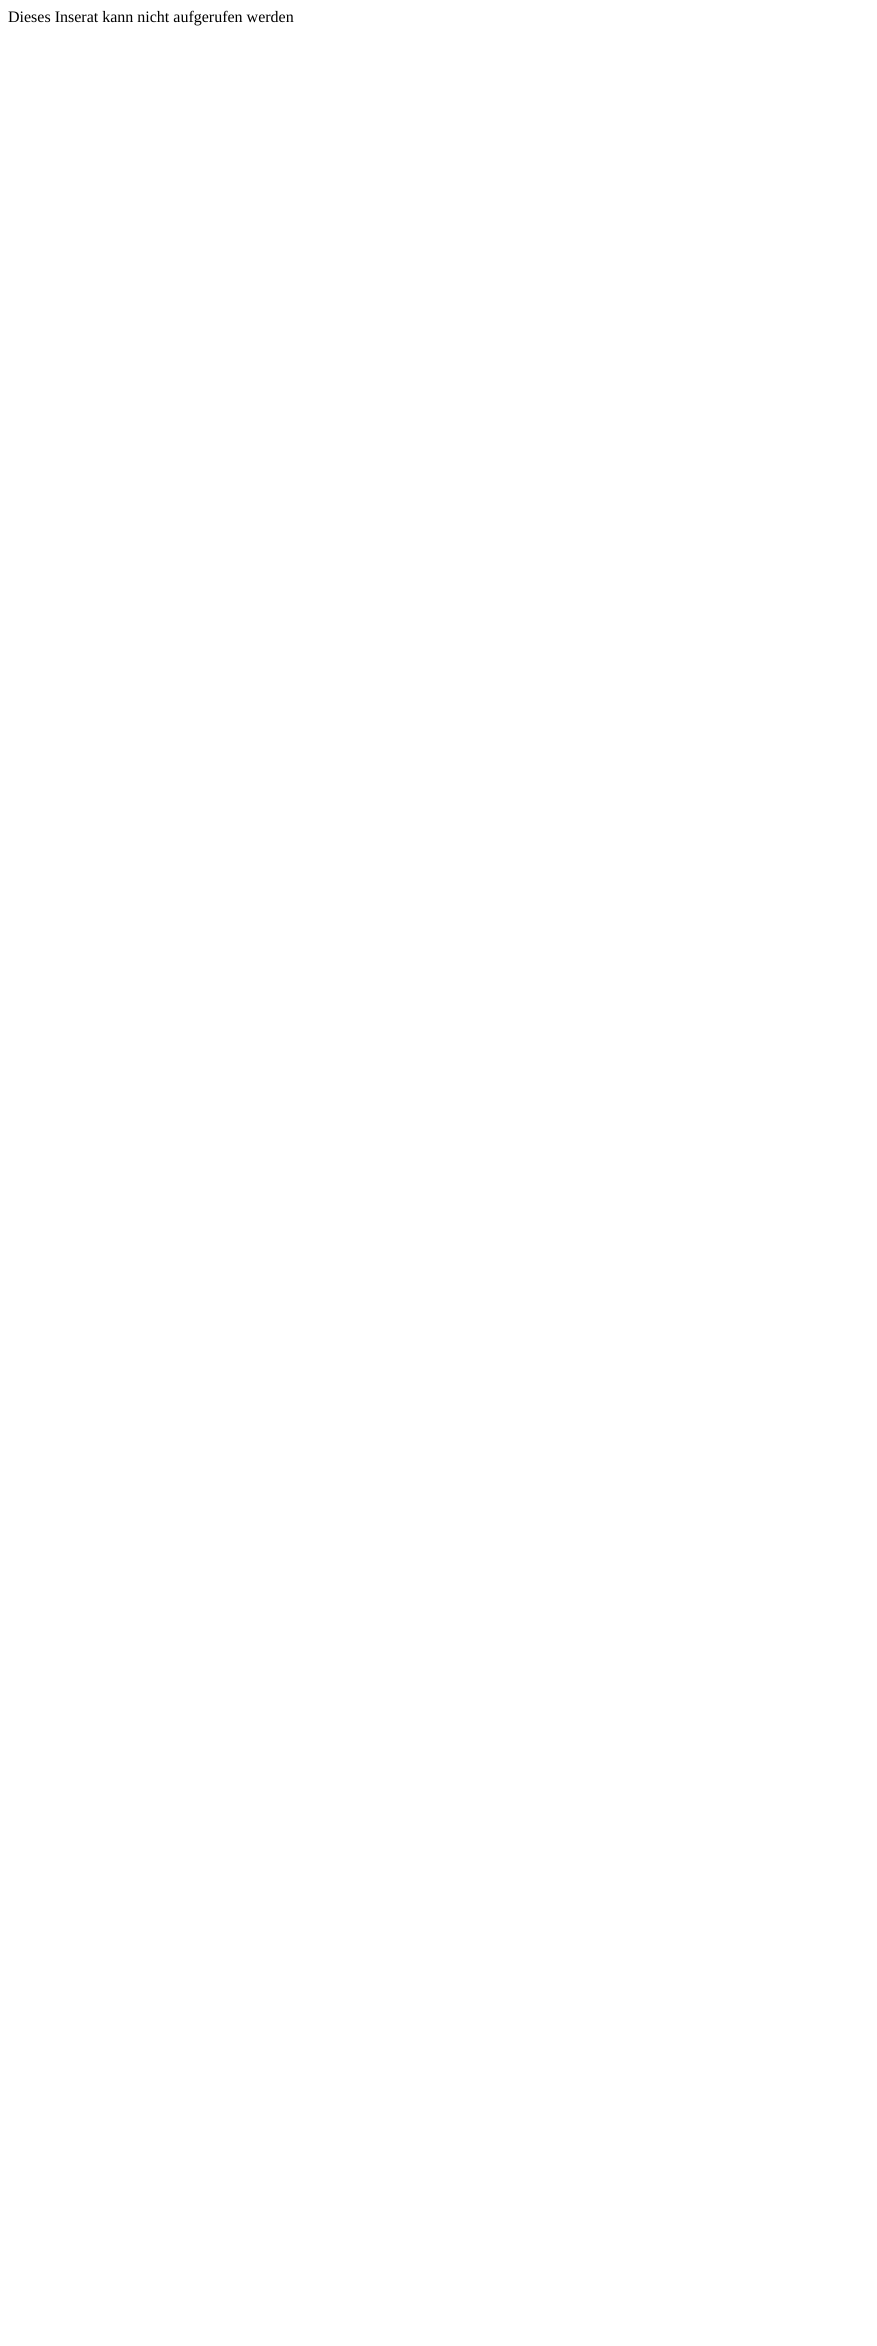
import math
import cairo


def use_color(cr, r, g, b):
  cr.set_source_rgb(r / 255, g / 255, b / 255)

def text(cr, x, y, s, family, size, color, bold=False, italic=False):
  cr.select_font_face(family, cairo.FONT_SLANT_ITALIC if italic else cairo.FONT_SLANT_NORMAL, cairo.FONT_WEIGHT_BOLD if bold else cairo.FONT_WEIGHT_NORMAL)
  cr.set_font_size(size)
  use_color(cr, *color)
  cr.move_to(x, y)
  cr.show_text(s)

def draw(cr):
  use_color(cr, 255, 255, 255)
  cr.paint()
  text(cr, 8, 22, "Dieses Inserat kann nicht aufgerufen werden", "Liberation Serif", 16, (0, 0, 0))


surface = cairo.ImageSurface(cairo.FORMAT_RGB24, 877, 2346)
cr = cairo.Context(surface)
options = cairo.FontOptions()
options.set_hint_metrics(cairo.HINT_METRICS_OFF)
options.set_hint_style(cairo.HINT_STYLE_NONE)
cr.set_font_options(options)
cr.set_miter_limit(4)
draw(cr)
surface.write_to_png("out.png")
